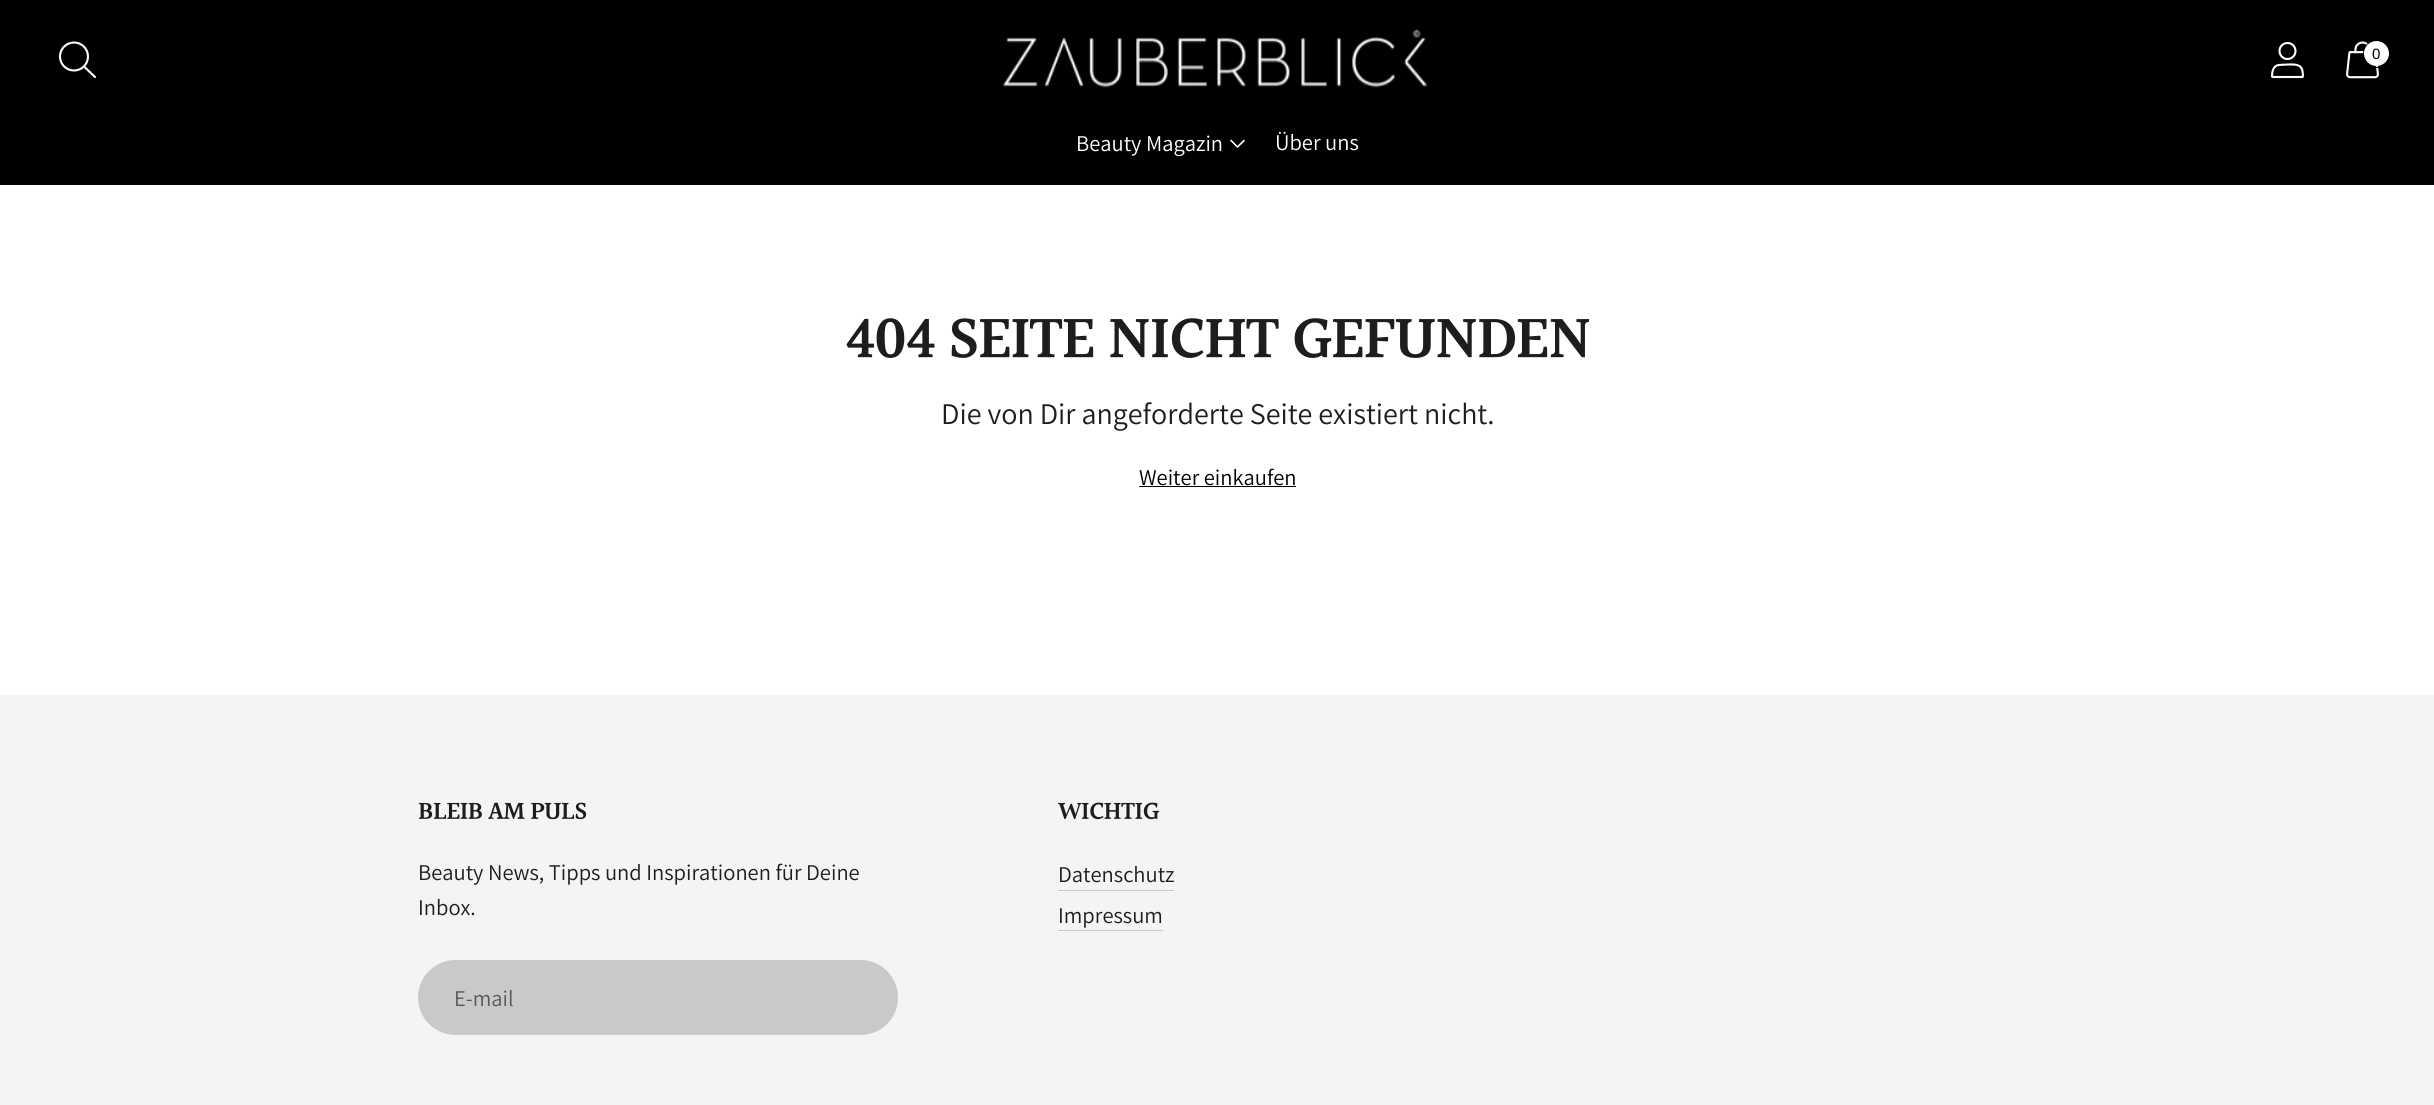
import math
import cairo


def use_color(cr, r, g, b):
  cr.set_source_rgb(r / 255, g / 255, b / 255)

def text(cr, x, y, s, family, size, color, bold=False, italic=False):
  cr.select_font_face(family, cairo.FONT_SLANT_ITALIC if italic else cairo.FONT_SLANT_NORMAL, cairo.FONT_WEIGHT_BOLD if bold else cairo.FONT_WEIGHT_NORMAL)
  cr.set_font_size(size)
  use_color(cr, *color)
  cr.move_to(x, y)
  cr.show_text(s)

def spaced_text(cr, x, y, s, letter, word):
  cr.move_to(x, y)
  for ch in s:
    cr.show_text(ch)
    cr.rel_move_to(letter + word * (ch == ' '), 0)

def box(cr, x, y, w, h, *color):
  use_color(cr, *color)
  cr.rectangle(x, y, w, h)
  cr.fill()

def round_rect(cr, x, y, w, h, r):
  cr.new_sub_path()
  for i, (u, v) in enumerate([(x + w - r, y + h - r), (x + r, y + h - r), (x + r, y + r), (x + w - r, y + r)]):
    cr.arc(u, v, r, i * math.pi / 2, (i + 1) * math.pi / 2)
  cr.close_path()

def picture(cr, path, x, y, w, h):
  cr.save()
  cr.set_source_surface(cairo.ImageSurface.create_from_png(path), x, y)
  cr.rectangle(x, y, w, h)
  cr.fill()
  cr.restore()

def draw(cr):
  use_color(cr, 255, 255, 255)
  cr.paint()
  box(cr, 0, 0, 2434, 185, 0, 0, 0)
  cr.arc(74, 56.5, 14, 0, 2 * math.pi)
  use_color(cr, 255, 255, 255)
  cr.set_line_width(2.1)
  cr.stroke()
  cr.new_path()
  cr.move_to(84.5, 67)
  cr.line_to(95, 77)
  cr.set_line_cap(cairo.LINE_CAP_ROUND)
  cr.set_line_join(cairo.LINE_JOIN_ROUND)
  cr.stroke()
  picture(cr, "img_01.png", 1002, 29, 426, 59)
  cr.arc(2287.5, 51, 8, 0, 2 * math.pi)
  cr.set_line_cap(cairo.LINE_CAP_BUTT)
  cr.set_line_join(cairo.LINE_JOIN_MITER)
  cr.stroke()
  cr.new_path()
  cr.move_to(2302.5, 77)
  cr.curve_to(2303.5, 77, 2302.5, 72, 2302.5, 71)
  cr.curve_to(2301, 63.5, 2293.5, 64.5, 2287.5, 64.5)
  cr.line_to(2278.5, 65)
  cr.curve_to(2273, 66, 2272, 72, 2272, 76.5)
  cr.line_to(2272.5, 77)
  cr.close_path()
  cr.set_line_cap(cairo.LINE_CAP_ROUND)
  cr.set_line_join(cairo.LINE_JOIN_ROUND)
  cr.stroke()
  picture(cr, "img_02.png", 2346, 41, 33, 38)
  round_rect(cr, 2363.5, 40.5, 26, 27, 13)
  use_color(cr, 0, 0, 0)
  cr.set_line_width(1)
  cr.set_line_cap(cairo.LINE_CAP_BUTT)
  cr.set_line_join(cairo.LINE_JOIN_MITER)
  cr.stroke()
  use_color(cr, 255, 255, 255)
  cr.arc(2376.5, 53.5, 12.5, 0, 2 * math.pi)
  cr.fill()
  cr.new_path()
  cr.move_to(1231, 140.5)
  cr.line_to(1237.5, 147)
  cr.line_to(1244, 140.5)
  cr.set_line_width(1.6)
  cr.set_line_cap(cairo.LINE_CAP_ROUND)
  cr.set_line_join(cairo.LINE_JOIN_ROUND)
  cr.stroke()
  box(cr, 1139, 486, 157, 1, 0, 0, 0)
  box(cr, 0, 695, 2434, 410, 244, 244, 244)
  use_color(cr, 201, 201, 201)
  round_rect(cr, 418, 960, 480, 75, 37.5)
  cr.fill()
  box(cr, 1058, 890, 116, 1, 201, 201, 201)
  box(cr, 1058, 930, 105, 1, 201, 201, 201)
  text(cr, 2372, 59, "0", "Liberation Sans", 15, (0, 0, 0))
  text(cr, 1076, 151, "Beauty Magazin", "Assistant", 22.5, (255, 255, 255))
  text(cr, 1275, 150, "Über uns", "Assistant", 22.5, (255, 255, 255))
  cr.select_font_face("Halant SemiBold")
  cr.set_font_size(60)
  use_color(cr, 29, 29, 29)
  spaced_text(cr, 845, 360, "404 SEITE NICHT GEFUNDEN", -1.5, 0)
  text(cr, 941, 424, "Die von Dir angeforderte Seite existiert nicht.", "Assistant", 30, (29, 29, 29))
  text(cr, 1139, 485, "Weiter einkaufen", "Assistant", 22.5, (0, 0, 0))
  cr.select_font_face("Halant SemiBold")
  cr.set_font_size(25)
  use_color(cr, 29, 29, 29)
  spaced_text(cr, 418, 820, "BLEIB AM PULS", -0.6, 0)
  text(cr, 418, 880, "Beauty News, Tipps und Inspirationen für Deine", "Assistant", 22.5, (29, 29, 29))
  text(cr, 418, 915, "Inbox.", "Assistant", 22.5, (29, 29, 29))
  text(cr, 454, 1006, "E-mail", "Assistant", 22.5, (89, 89, 89))
  cr.select_font_face("Halant SemiBold")
  cr.set_font_size(25)
  use_color(cr, 29, 29, 29)
  spaced_text(cr, 1058, 820, "WICHTIG", -0.6, 0)
  text(cr, 1058, 882, "Datenschutz", "Assistant", 22.5, (29, 29, 29))
  text(cr, 1058, 923, "Impressum", "Assistant", 22.5, (29, 29, 29))


surface = cairo.ImageSurface(cairo.FORMAT_RGB24, 2434, 1105)
cr = cairo.Context(surface)
options = cairo.FontOptions()
options.set_hint_metrics(cairo.HINT_METRICS_OFF)
options.set_hint_style(cairo.HINT_STYLE_NONE)
cr.set_font_options(options)
cr.set_miter_limit(4)
draw(cr)
surface.write_to_png("out.png")
